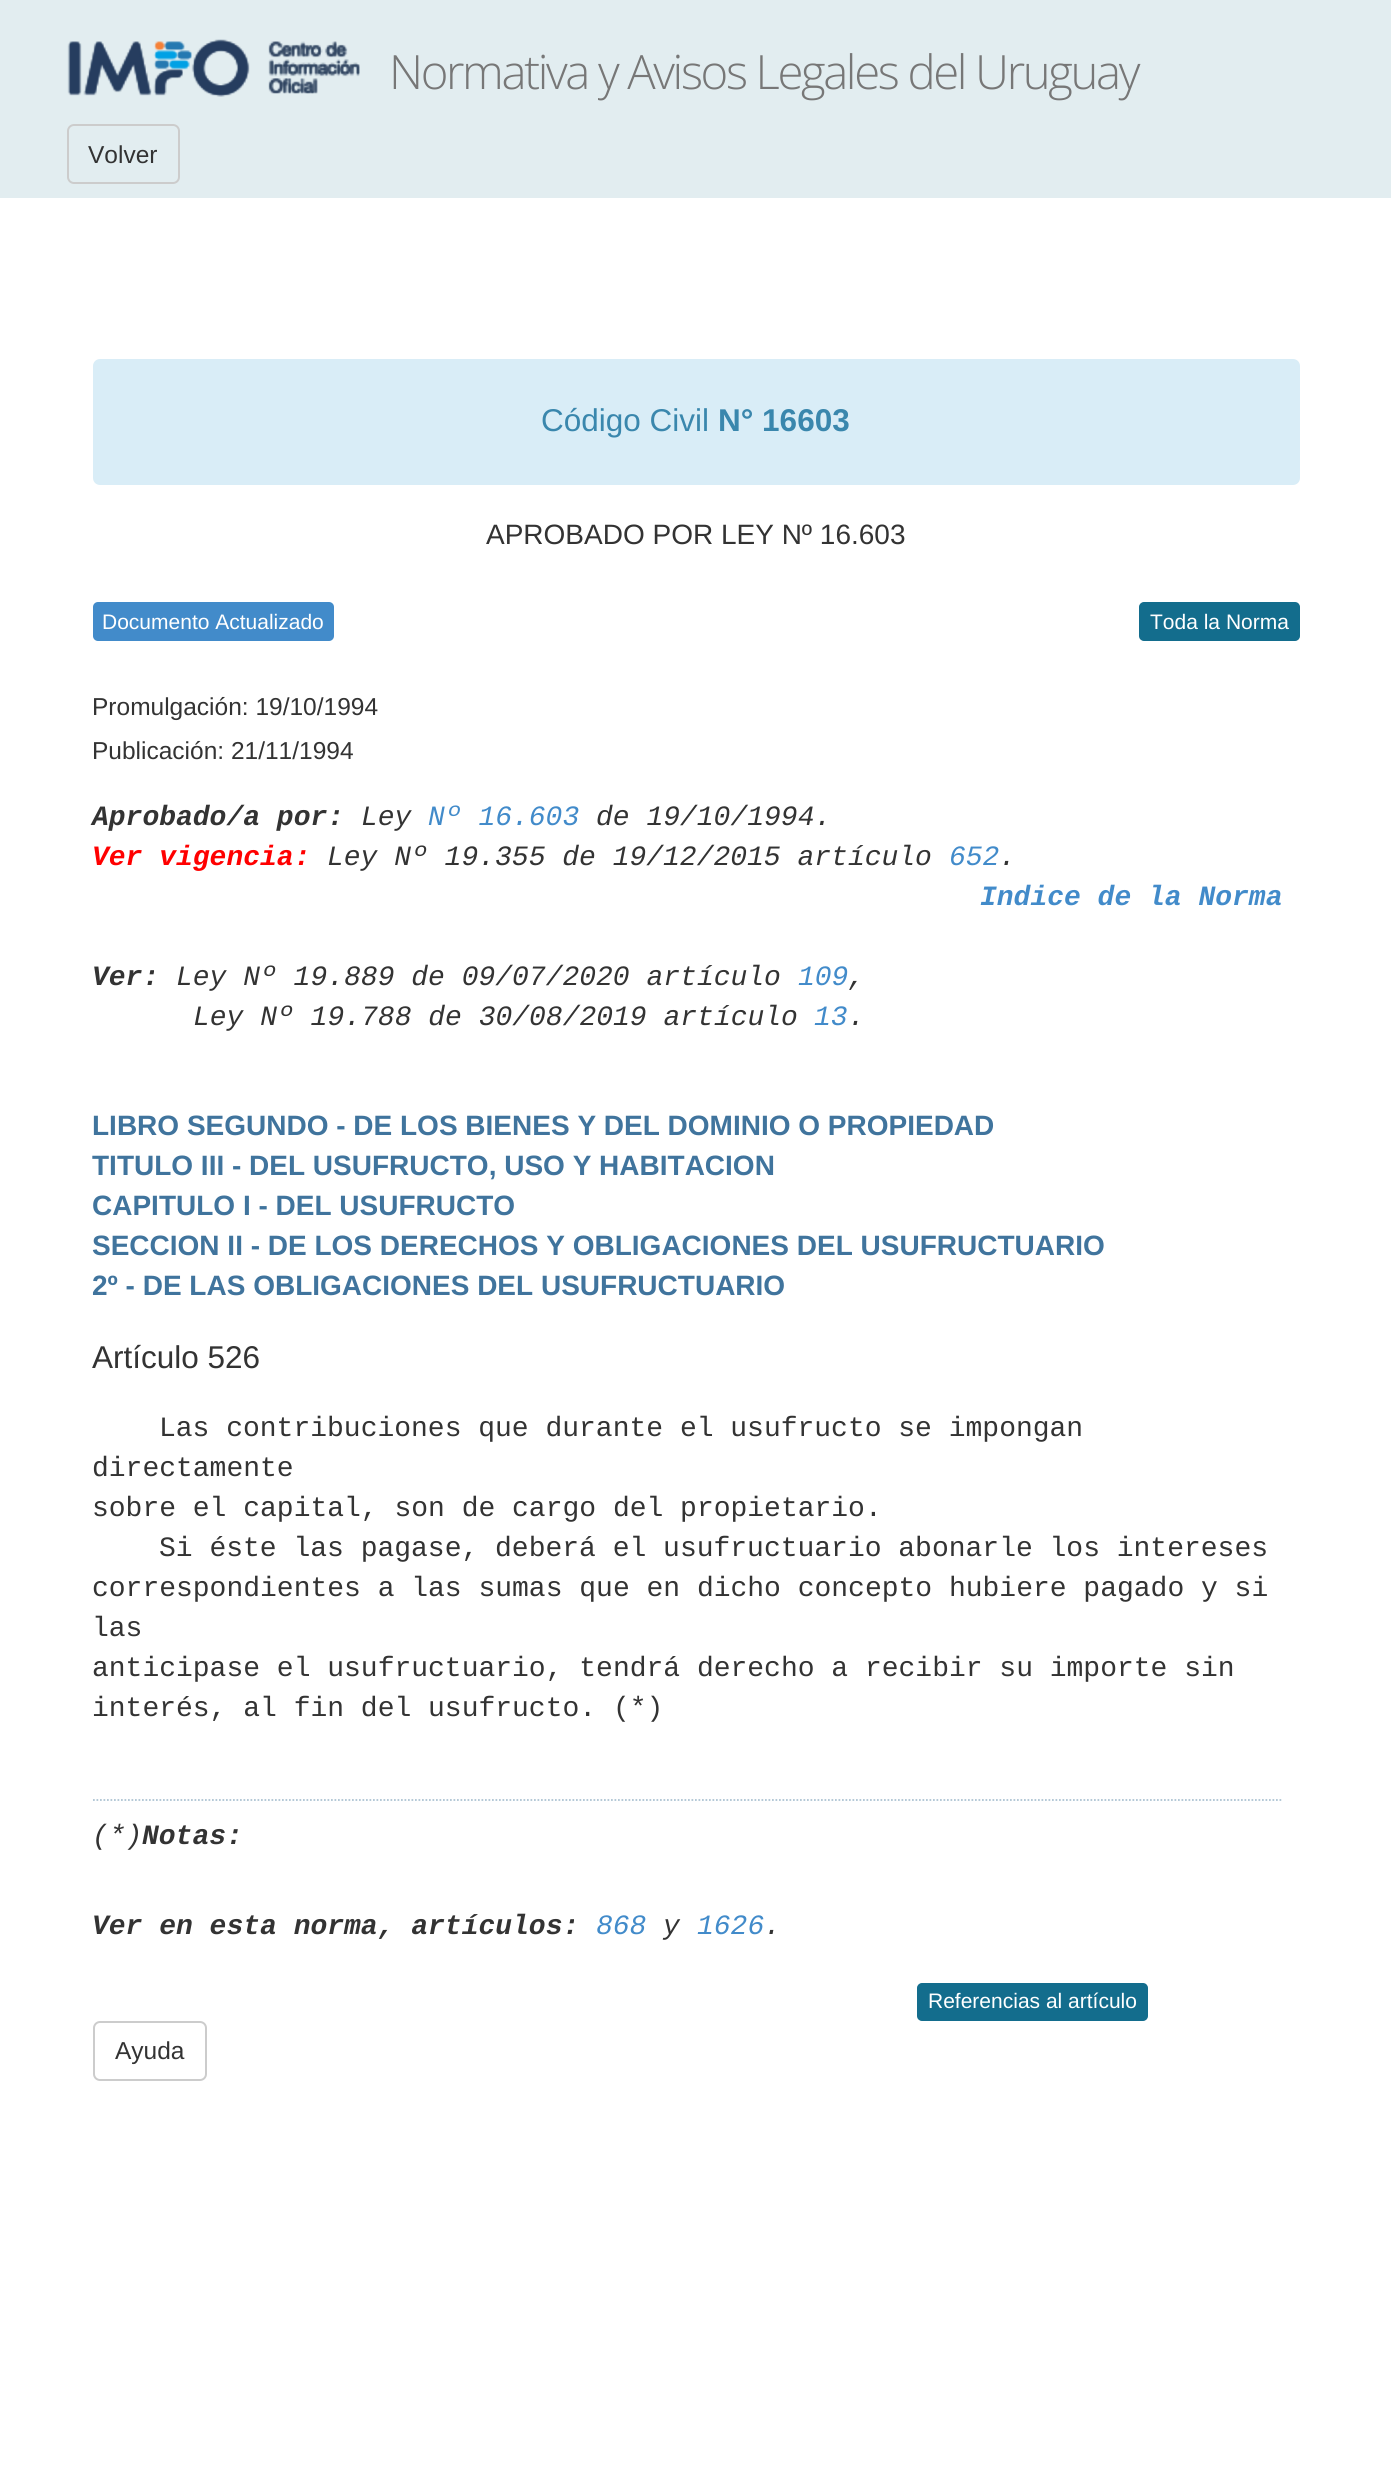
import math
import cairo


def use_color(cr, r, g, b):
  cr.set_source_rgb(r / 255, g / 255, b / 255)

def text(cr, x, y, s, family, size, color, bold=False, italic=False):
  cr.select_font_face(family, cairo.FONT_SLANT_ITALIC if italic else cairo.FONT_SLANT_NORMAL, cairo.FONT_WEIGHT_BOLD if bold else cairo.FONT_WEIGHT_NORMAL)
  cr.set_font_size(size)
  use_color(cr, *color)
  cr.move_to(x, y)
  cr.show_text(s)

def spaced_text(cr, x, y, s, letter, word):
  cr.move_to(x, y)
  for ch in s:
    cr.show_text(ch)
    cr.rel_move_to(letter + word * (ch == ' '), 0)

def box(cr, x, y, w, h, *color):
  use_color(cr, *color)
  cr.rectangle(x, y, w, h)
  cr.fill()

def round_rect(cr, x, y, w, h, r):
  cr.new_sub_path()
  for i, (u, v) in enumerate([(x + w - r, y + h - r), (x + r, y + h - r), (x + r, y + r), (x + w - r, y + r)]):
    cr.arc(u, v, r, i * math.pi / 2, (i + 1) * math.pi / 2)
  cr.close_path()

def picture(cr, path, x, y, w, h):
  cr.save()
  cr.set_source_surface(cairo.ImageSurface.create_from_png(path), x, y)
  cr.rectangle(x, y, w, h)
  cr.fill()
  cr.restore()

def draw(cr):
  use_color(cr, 255, 255, 255)
  cr.paint()
  box(cr, 0, 0, 1391, 198, 226, 237, 240)
  picture(cr, "img_01.png", 67, 39, 293, 58)
  picture(cr, "img_02.png", 68, 39, 292, 58)
  round_rect(cr, 68, 125, 111, 58, 6)
  use_color(cr, 204, 204, 204)
  cr.stroke()
  use_color(cr, 217, 237, 247)
  round_rect(cr, 93, 359, 1207, 126, 7)
  cr.fill()
  use_color(cr, 66, 139, 202)
  round_rect(cr, 93, 602, 241, 39, 5)
  cr.fill()
  use_color(cr, 19, 109, 141)
  round_rect(cr, 1140, 603, 159, 37, 4)
  cr.fill_preserve()
  cr.stroke()
  cr.new_path()
  cr.move_to(93, 1800)
  cr.line_to(1283, 1800)
  use_color(cr, 173, 195, 211)
  cr.set_line_width(1.8)
  cr.set_dash([1.75, 1.75])
  cr.stroke()
  use_color(cr, 19, 109, 141)
  round_rect(cr, 918, 1984, 229, 36, 4)
  cr.fill_preserve()
  cr.set_line_width(2)
  cr.set_dash([])
  cr.stroke()
  round_rect(cr, 94, 2022, 112, 58, 6)
  use_color(cr, 204, 204, 204)
  cr.stroke()
  cr.select_font_face("Open Sans Light")
  cr.set_font_size(47.25)
  use_color(cr, 119, 119, 119)
  spaced_text(cr, 389, 89, "Normativa y Avisos Legales del Uruguay", -2.35, 0)
  text(cr, 88, 163, "Volver", "Liberation Sans", 24.5, (51, 51, 51))
  text(cr, 541, 431, "Código Civil", "Liberation Sans", 31.5, (58, 135, 173))
  text(cr, 718, 431, "N° 16603", "Liberation Sans", 31.5, (58, 135, 173), bold=True)
  text(cr, 486, 544, "APROBADO POR LEY Nº 16.603", "Liberation Sans", 28, (51, 51, 51))
  text(cr, 102, 629, "Documento Actualizado", "Liberation Sans", 21, (255, 255, 255))
  text(cr, 1150, 629, "Toda la Norma", "Liberation Sans", 21, (255, 255, 255))
  text(cr, 92, 715, "Promulgación: 19/10/1994", "Liberation Sans", 24.5, (51, 51, 51))
  text(cr, 92, 759, "Publicación: 21/11/1994", "Liberation Sans", 24.5, (51, 51, 51))
  text(cr, 92, 825, "Aprobado/a por:", "Liberation Mono", 28, (51, 51, 51), bold=True, italic=True)
  text(cr, 361, 825, "Ley", "Liberation Mono", 28, (51, 51, 51), italic=True)
  text(cr, 428, 825, "Nº 16.603", "Liberation Mono", 28, (66, 139, 202), italic=True)
  text(cr, 596, 825, "de 19/10/1994.", "Liberation Mono", 28, (51, 51, 51), italic=True)
  text(cr, 92, 865, "Ver vigencia:", "Liberation Mono", 28, (255, 0, 0), bold=True, italic=True)
  text(cr, 327, 865, "Ley Nº 19.355 de 19/12/2015 artículo", "Liberation Mono", 28, (51, 51, 51), italic=True)
  text(cr, 949, 865, "652", "Liberation Mono", 28, (66, 139, 202), italic=True)
  text(cr, 999, 865, ".", "Liberation Mono", 28, (51, 51, 51), italic=True)
  text(cr, 980, 905, "Indice de la Norma", "Liberation Mono", 28, (66, 139, 202), bold=True, italic=True)
  text(cr, 92, 985, "Ver:", "Liberation Mono", 28, (51, 51, 51), bold=True, italic=True)
  text(cr, 176, 985, "Ley Nº 19.889 de 09/07/2020 artículo", "Liberation Mono", 28, (51, 51, 51), italic=True)
  text(cr, 798, 985, "109", "Liberation Mono", 28, (66, 139, 202), italic=True)
  text(cr, 848, 985, ",", "Liberation Mono", 28, (51, 51, 51), italic=True)
  text(cr, 193, 1025, "Ley Nº 19.788 de 30/08/2019 artículo", "Liberation Mono", 28, (51, 51, 51), italic=True)
  text(cr, 814, 1025, "13", "Liberation Mono", 28, (66, 139, 202), italic=True)
  text(cr, 848, 1025, ".", "Liberation Mono", 28, (51, 51, 51), italic=True)
  text(cr, 92, 1135, "LIBRO SEGUNDO - DE LOS BIENES Y DEL DOMINIO O PROPIEDAD", "Liberation Sans", 28, (64, 116, 157), bold=True)
  text(cr, 92, 1175, "TITULO III - DEL USUFRUCTO, USO Y HABITACION", "Liberation Sans", 28, (64, 116, 157), bold=True)
  text(cr, 92, 1215, "CAPITULO I - DEL USUFRUCTO", "Liberation Sans", 28, (64, 116, 157), bold=True)
  text(cr, 92, 1255, "SECCION II - DE LOS DERECHOS Y OBLIGACIONES DEL USUFRUCTUARIO", "Liberation Sans", 28, (64, 116, 157), bold=True)
  text(cr, 92, 1295, "2º - DE LAS OBLIGACIONES DEL USUFRUCTUARIO", "Liberation Sans", 28, (64, 116, 157), bold=True)
  text(cr, 92, 1368, "Artículo 526", "Liberation Sans", 31.5, (51, 51, 51))
  text(cr, 159, 1436, "Las contribuciones que durante el usufructo se impongan", "Liberation Mono", 28, (51, 51, 51))
  text(cr, 92, 1476, "directamente", "Liberation Mono", 28, (51, 51, 51))
  text(cr, 92, 1516, "sobre el capital, son de cargo del propietario.", "Liberation Mono", 28, (51, 51, 51))
  text(cr, 159, 1556, "Si éste las pagase, deberá el usufructuario abonarle los intereses", "Liberation Mono", 28, (51, 51, 51))
  text(cr, 92, 1596, "correspondientes a las sumas que en dicho concepto hubiere pagado y si", "Liberation Mono", 28, (51, 51, 51))
  text(cr, 92, 1636, "las", "Liberation Mono", 28, (51, 51, 51))
  text(cr, 92, 1676, "anticipase el usufructuario, tendrá derecho a recibir su importe sin", "Liberation Mono", 28, (51, 51, 51))
  text(cr, 92, 1716, "interés, al fin del usufructo. (*)", "Liberation Mono", 28, (51, 51, 51))
  text(cr, 92, 1844, "(*)", "Liberation Mono", 28, (51, 51, 51), italic=True)
  text(cr, 142, 1844, "Notas:", "Liberation Mono", 28, (51, 51, 51), bold=True, italic=True)
  text(cr, 92, 1934, "Ver en esta norma, artículos:", "Liberation Mono", 28, (51, 51, 51), bold=True, italic=True)
  text(cr, 596, 1934, "868", "Liberation Mono", 28, (66, 139, 202), italic=True)
  text(cr, 663, 1934, "y", "Liberation Mono", 28, (51, 51, 51), italic=True)
  text(cr, 697, 1934, "1626", "Liberation Mono", 28, (66, 139, 202), italic=True)
  text(cr, 764, 1934, ".", "Liberation Mono", 28, (51, 51, 51), italic=True)
  text(cr, 928, 2008, "Referencias al artículo", "Liberation Sans", 21, (255, 255, 255))
  text(cr, 115, 2059, "Ayuda", "Liberation Sans", 24.5, (51, 51, 51))


surface = cairo.ImageSurface(cairo.FORMAT_RGB24, 1391, 2471)
cr = cairo.Context(surface)
options = cairo.FontOptions()
options.set_hint_metrics(cairo.HINT_METRICS_OFF)
options.set_hint_style(cairo.HINT_STYLE_NONE)
cr.set_font_options(options)
cr.set_miter_limit(4)
draw(cr)
surface.write_to_png("out.png")
